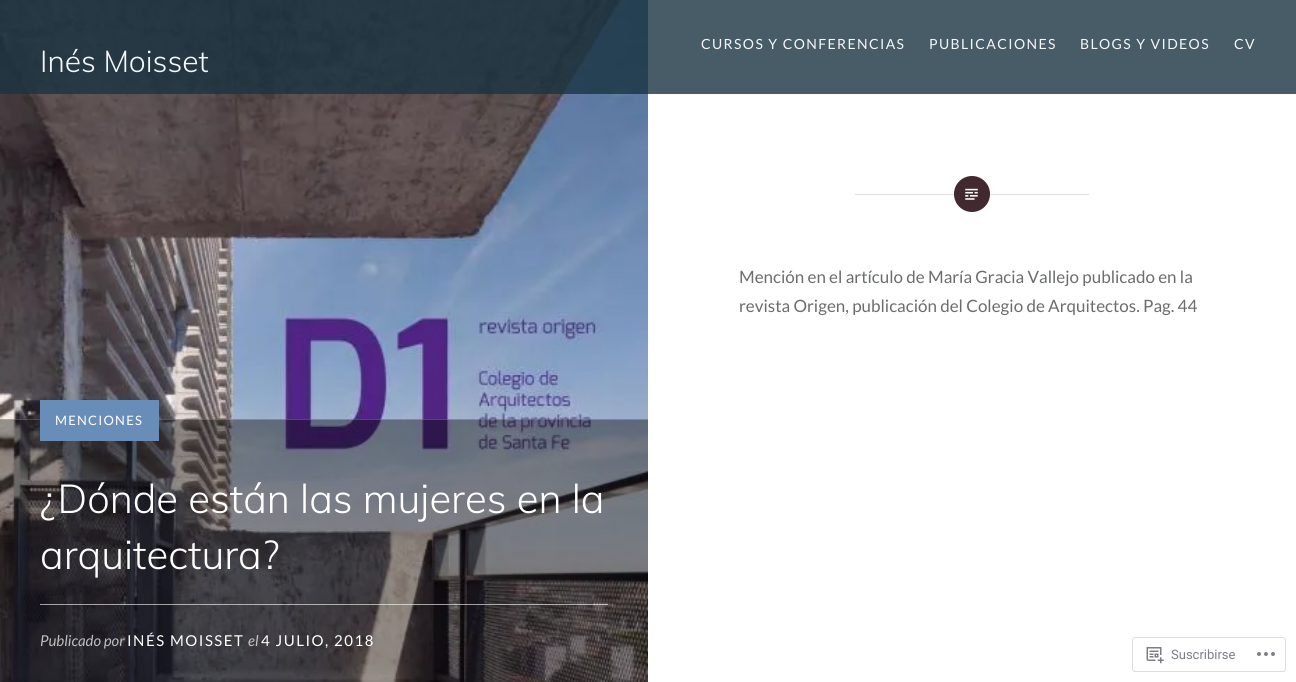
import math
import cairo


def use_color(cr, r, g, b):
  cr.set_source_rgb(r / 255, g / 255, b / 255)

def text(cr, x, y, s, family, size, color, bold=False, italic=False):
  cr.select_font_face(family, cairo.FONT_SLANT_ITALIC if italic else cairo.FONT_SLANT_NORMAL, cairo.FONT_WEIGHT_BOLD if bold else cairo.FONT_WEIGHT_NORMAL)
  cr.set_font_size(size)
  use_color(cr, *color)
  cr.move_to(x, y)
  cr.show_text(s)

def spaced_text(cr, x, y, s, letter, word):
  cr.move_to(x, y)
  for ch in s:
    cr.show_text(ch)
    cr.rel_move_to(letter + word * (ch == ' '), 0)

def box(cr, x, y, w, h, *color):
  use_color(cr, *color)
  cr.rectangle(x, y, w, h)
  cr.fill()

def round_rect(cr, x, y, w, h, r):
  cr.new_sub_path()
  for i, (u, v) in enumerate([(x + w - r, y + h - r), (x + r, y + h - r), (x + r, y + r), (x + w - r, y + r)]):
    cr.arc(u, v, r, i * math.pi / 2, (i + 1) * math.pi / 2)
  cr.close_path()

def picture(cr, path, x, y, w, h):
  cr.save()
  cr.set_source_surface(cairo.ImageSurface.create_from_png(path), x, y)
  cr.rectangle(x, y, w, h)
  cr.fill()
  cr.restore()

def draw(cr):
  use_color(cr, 255, 255, 255)
  cr.paint()
  picture(cr, "img_01.png", 0, 0, 648, 682)
  cr.set_source_rgba(0.098, 0.204, 0.255, 0.8)
  cr.rectangle(0, 0, 1296, 94)
  cr.fill()
  box(cr, 855, 194, 234, 1, 224, 224, 224)
  use_color(cr, 66, 40, 47)
  cr.arc(972, 194, 18, 0, 2 * math.pi)
  cr.fill()
  picture(cr, "img_02.png", 965, 188, 13, 12)
  cr.set_source_rgba(0, 0, 0, 0.4)
  cr.rectangle(0, 419, 648, 263)
  cr.fill()
  cr.set_source_rgba(1, 1, 1, 0.2)
  cr.rectangle(0, 419, 648, 1)
  cr.fill()
  box(cr, 40, 400, 119, 41, 103, 141, 184)
  cr.set_source_rgba(1, 1, 1, 0.6)
  cr.rectangle(40, 604, 568, 1)
  cr.fill()
  round_rect(cr, 1132.5, 637.5, 153, 34, 2.5)
  use_color(cr, 221, 221, 223)
  cr.set_line_width(1)
  cr.stroke()
  picture(cr, "img_03.png", 1146, 647, 18, 17)
  picture(cr, "img_04.png", 1257, 652, 18, 4)
  cr.select_font_face("Lato")
  cr.set_font_size(14)
  use_color(cr, 245, 246, 249)
  spaced_text(cr, 701, 49, "CURSOS Y CONFERENCIAS", 1.4, 0)
  spaced_text(cr, 929, 49, "PUBLICACIONES", 1.4, 0)
  spaced_text(cr, 1080, 49, "BLOGS Y VIDEOS", 1.4, 0)
  spaced_text(cr, 1234, 49, "CV", 1.4, 0)
  text(cr, 40, 72, "Inés Moisset", "Muli Light", 30, (245, 246, 249))
  text(cr, 739, 283, "Mención en el artículo de María Gracia Vallejo publicado en la", "Lato", 17, (106, 108, 110))
  text(cr, 739, 312, "revista Origen, publicación del Colegio de Arquitectos. Pag. 44", "Lato", 17, (106, 108, 110))
  cr.set_font_size(13)
  use_color(cr, 255, 255, 255)
  spaced_text(cr, 55, 425, "MENCIONES", 1.25, 0)
  text(cr, 40, 513, "¿Dónde están las mujeres en la", "Muli Light", 40, (255, 255, 255))
  text(cr, 40, 569, "arquitectura?", "Muli Light", 40, (255, 255, 255))
  text(cr, 40, 646, "Publicado por", "Lato", 15, (190, 189, 191), italic=True)
  cr.select_font_face("Lato")
  use_color(cr, 255, 255, 255)
  spaced_text(cr, 127, 646, "INÉS MOISSET", 1.5, 0)
  text(cr, 248, 646, "el", "Lato", 15, (197, 196, 198), italic=True)
  cr.select_font_face("Lato")
  use_color(cr, 255, 255, 255)
  spaced_text(cr, 261, 646, "4 JULIO, 2018", 1.5, 0)
  text(cr, 1171, 659, "Suscribirse", "Roboto", 13, (123, 127, 133))


surface = cairo.ImageSurface(cairo.FORMAT_RGB24, 1296, 682)
cr = cairo.Context(surface)
options = cairo.FontOptions()
options.set_hint_metrics(cairo.HINT_METRICS_OFF)
options.set_hint_style(cairo.HINT_STYLE_NONE)
cr.set_font_options(options)
cr.set_miter_limit(4)
draw(cr)
surface.write_to_png("out.png")
